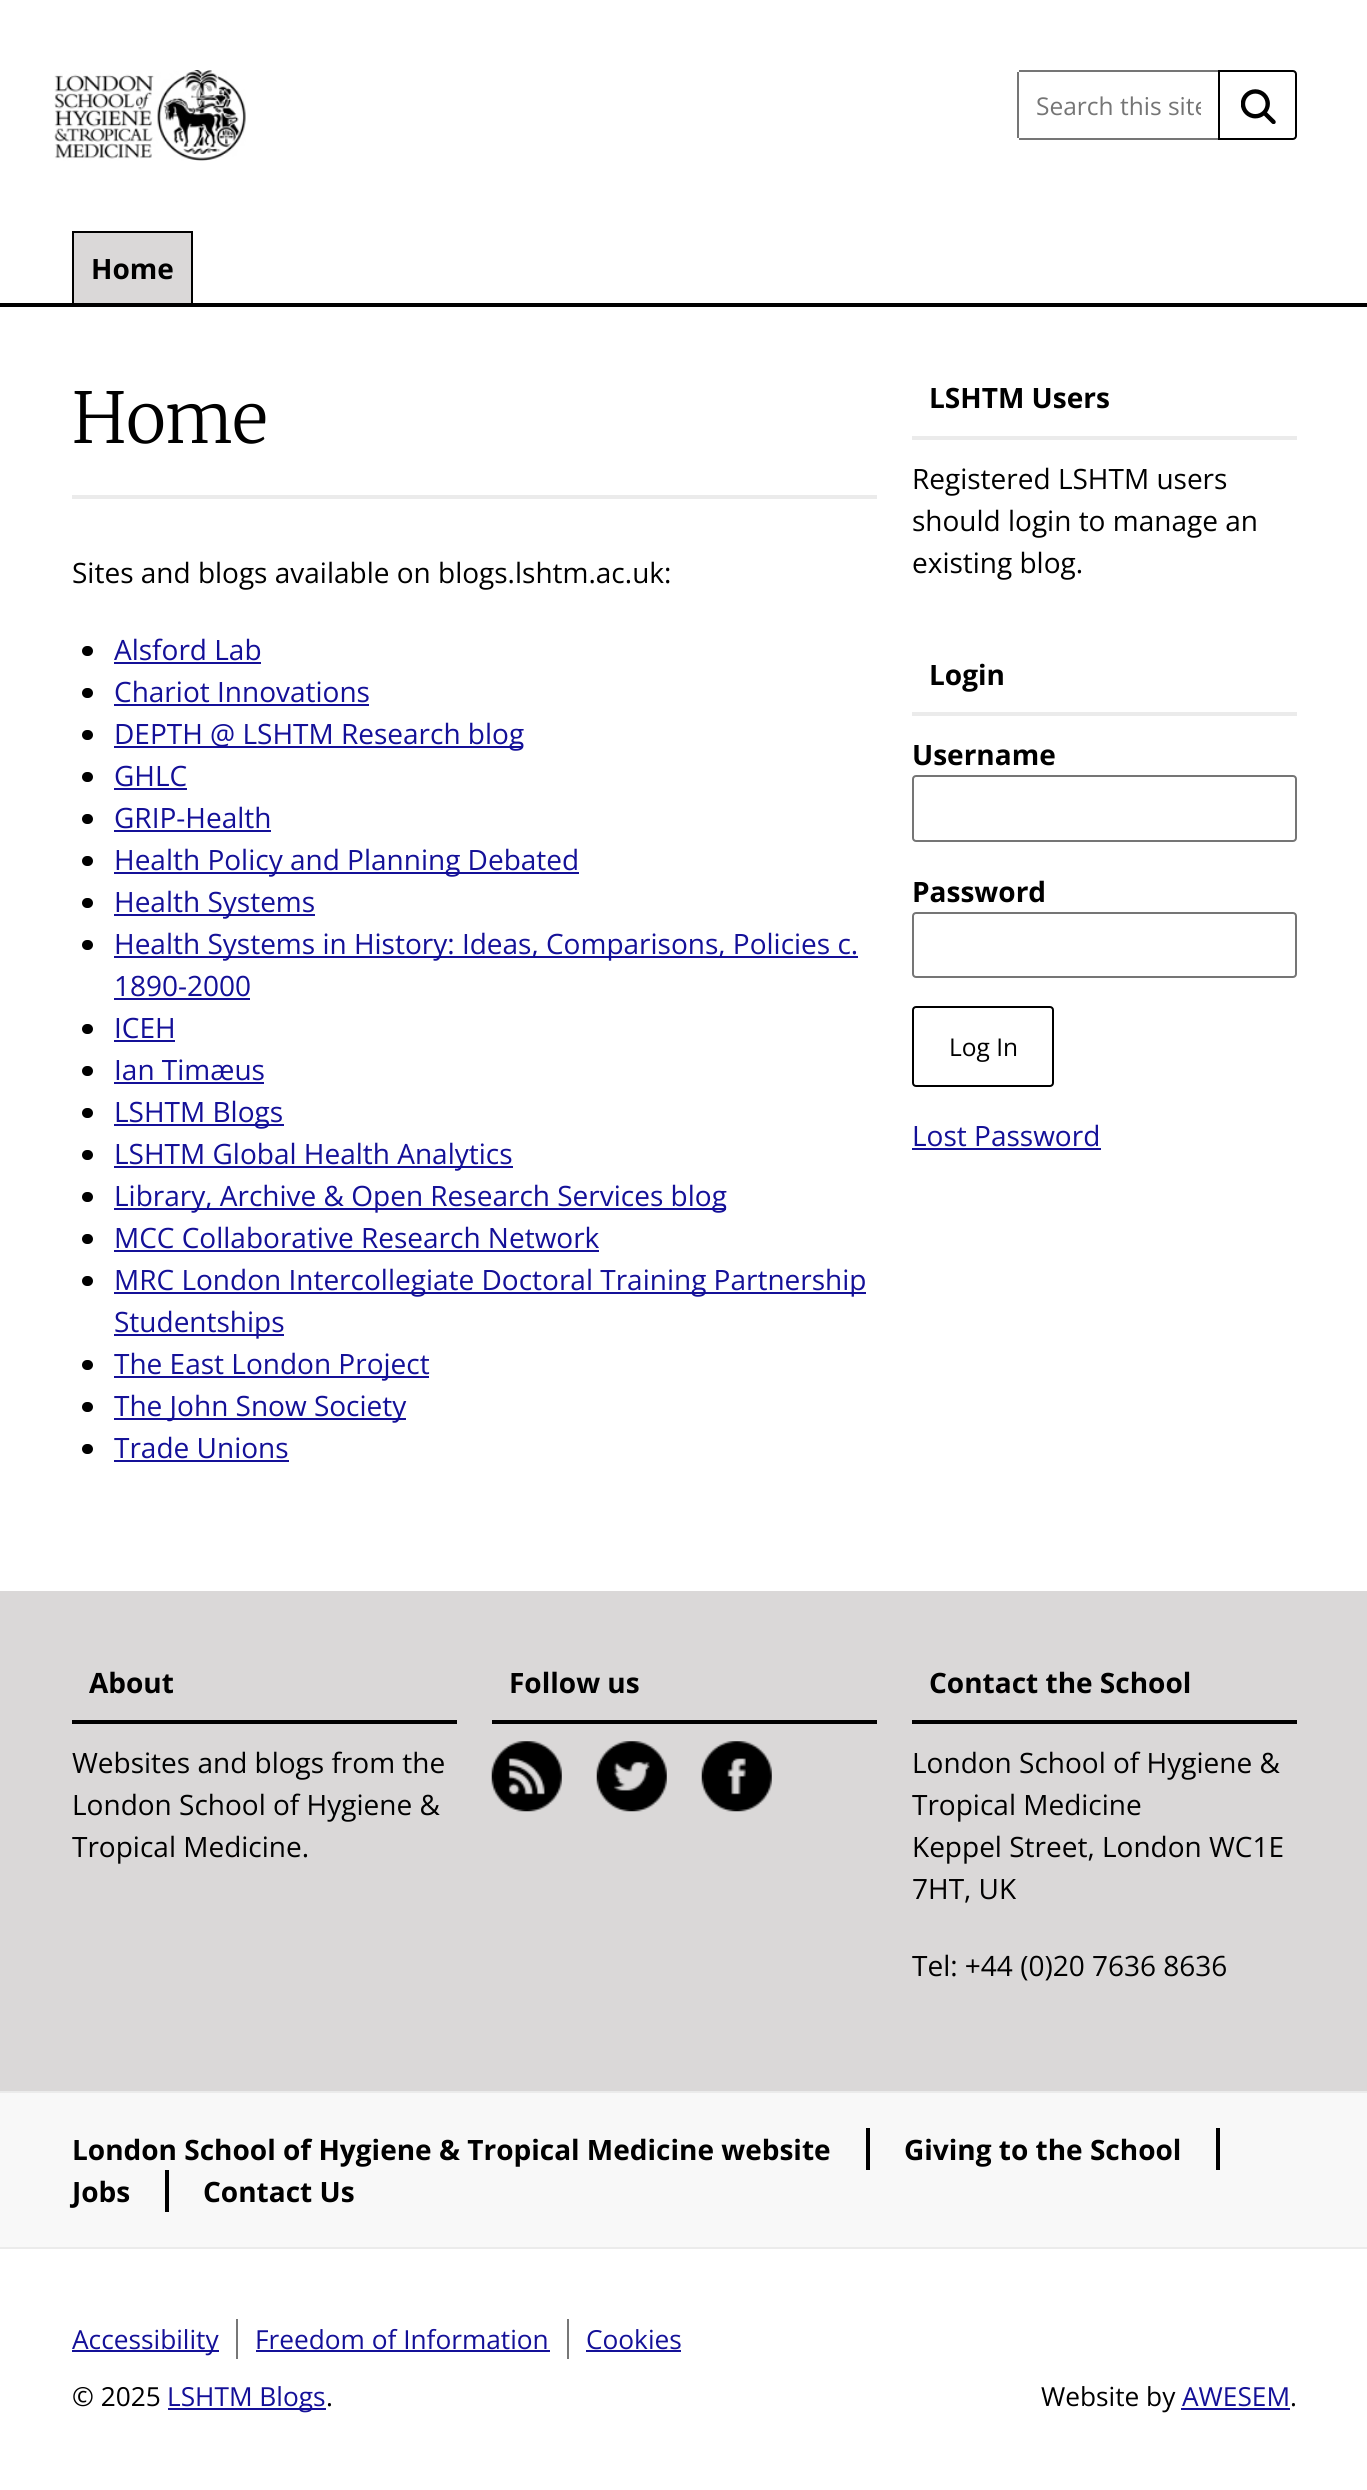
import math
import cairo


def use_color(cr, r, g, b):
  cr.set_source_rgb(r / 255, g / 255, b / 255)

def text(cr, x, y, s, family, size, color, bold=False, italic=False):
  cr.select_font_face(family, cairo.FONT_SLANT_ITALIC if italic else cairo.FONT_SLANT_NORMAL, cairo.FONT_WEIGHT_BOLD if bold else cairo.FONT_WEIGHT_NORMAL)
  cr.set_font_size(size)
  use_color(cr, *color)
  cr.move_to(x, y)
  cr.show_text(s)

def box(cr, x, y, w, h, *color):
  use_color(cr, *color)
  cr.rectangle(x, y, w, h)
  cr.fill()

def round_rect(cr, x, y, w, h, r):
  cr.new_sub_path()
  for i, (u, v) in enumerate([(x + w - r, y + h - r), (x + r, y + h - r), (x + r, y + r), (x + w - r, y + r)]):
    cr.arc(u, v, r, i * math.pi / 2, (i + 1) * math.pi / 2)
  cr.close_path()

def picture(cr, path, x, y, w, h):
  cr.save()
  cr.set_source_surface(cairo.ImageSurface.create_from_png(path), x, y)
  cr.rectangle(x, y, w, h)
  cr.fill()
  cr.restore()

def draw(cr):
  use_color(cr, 255, 255, 255)
  cr.paint()
  box(cr, 0, 303, 1367, 4, 0, 0, 0)
  picture(cr, "img_01.png", 54, 70, 192, 91)
  box(cr, 1019, 70, 199, 2, 117, 117, 117)
  box(cr, 1019, 138, 199, 2, 117, 117, 117)
  box(cr, 1017, 72, 2, 66, 117, 117, 117)
  cr.new_path()
  cr.move_to(1219, 71)
  cr.line_to(1293, 71)
  cr.curve_to(1294.5, 71, 1296, 72.5, 1296, 74)
  cr.line_to(1296, 136)
  cr.curve_to(1296, 137.5, 1294.5, 139, 1293, 139)
  cr.line_to(1219, 139)
  cr.close_path()
  use_color(cr, 0, 0, 0)
  cr.stroke()
  picture(cr, "img_02.png", 1241, 89, 35, 35)
  box(cr, 72, 231, 121, 2, 0, 0, 0)
  box(cr, 191, 231, 2, 72, 0, 0, 0)
  box(cr, 72, 231, 2, 72, 0, 0, 0)
  box(cr, 74, 233, 117, 70, 218, 216, 216)
  box(cr, 72, 495, 805, 4, 235, 235, 235)
  use_color(cr, 0, 0, 0)
  round_rect(cr, 82, 646, 11, 10, 5)
  cr.fill()
  box(cr, 114, 662, 147, 2, 20, 16, 152)
  use_color(cr, 0, 0, 0)
  round_rect(cr, 82, 688, 11, 10, 5)
  cr.fill()
  box(cr, 114, 704, 255, 2, 20, 16, 152)
  use_color(cr, 0, 0, 0)
  round_rect(cr, 82, 730, 11, 10, 5)
  cr.fill()
  box(cr, 114, 746, 409, 2, 20, 16, 152)
  use_color(cr, 0, 0, 0)
  round_rect(cr, 82, 772, 11, 10, 5)
  cr.fill()
  box(cr, 114, 788, 73, 2, 20, 16, 152)
  use_color(cr, 0, 0, 0)
  round_rect(cr, 82, 814, 11, 10, 5)
  cr.fill()
  box(cr, 114, 830, 157, 2, 20, 16, 152)
  use_color(cr, 0, 0, 0)
  round_rect(cr, 82, 856, 11, 10, 5)
  cr.fill()
  box(cr, 114, 872, 465, 2, 20, 16, 152)
  use_color(cr, 0, 0, 0)
  round_rect(cr, 82, 898, 11, 10, 5)
  cr.fill()
  box(cr, 114, 914, 201, 2, 20, 16, 152)
  use_color(cr, 0, 0, 0)
  round_rect(cr, 82, 940, 11, 10, 5)
  cr.fill()
  box(cr, 114, 956, 744, 2, 20, 16, 152)
  box(cr, 114, 998, 136, 2, 20, 16, 152)
  use_color(cr, 0, 0, 0)
  round_rect(cr, 82, 1024, 11, 10, 5)
  cr.fill()
  box(cr, 114, 1040, 61, 2, 20, 16, 152)
  use_color(cr, 0, 0, 0)
  round_rect(cr, 82, 1066, 11, 10, 5)
  cr.fill()
  box(cr, 114, 1082, 150, 2, 20, 16, 152)
  use_color(cr, 0, 0, 0)
  round_rect(cr, 82, 1108, 11, 10, 5)
  cr.fill()
  box(cr, 114, 1124, 170, 2, 20, 16, 152)
  use_color(cr, 0, 0, 0)
  round_rect(cr, 82, 1150, 11, 10, 5)
  cr.fill()
  box(cr, 114, 1166, 399, 2, 20, 16, 152)
  use_color(cr, 0, 0, 0)
  round_rect(cr, 82, 1192, 11, 10, 5)
  cr.fill()
  box(cr, 114, 1208, 612, 2, 20, 16, 152)
  use_color(cr, 0, 0, 0)
  round_rect(cr, 82, 1234, 11, 10, 5)
  cr.fill()
  box(cr, 114, 1250, 485, 2, 20, 16, 152)
  use_color(cr, 0, 0, 0)
  round_rect(cr, 82, 1276, 11, 10, 5)
  cr.fill()
  box(cr, 114, 1292, 752, 2, 20, 16, 152)
  box(cr, 114, 1334, 170, 2, 20, 16, 152)
  use_color(cr, 0, 0, 0)
  round_rect(cr, 82, 1360, 11, 10, 5)
  cr.fill()
  box(cr, 114, 1376, 315, 2, 20, 16, 152)
  use_color(cr, 0, 0, 0)
  round_rect(cr, 82, 1402, 11, 10, 5)
  cr.fill()
  box(cr, 114, 1418, 292, 2, 20, 16, 152)
  use_color(cr, 0, 0, 0)
  round_rect(cr, 82, 1444, 11, 10, 5)
  cr.fill()
  box(cr, 114, 1460, 175, 2, 20, 16, 152)
  box(cr, 912, 436, 385, 4, 235, 235, 235)
  box(cr, 912, 712, 385, 4, 235, 235, 235)
  round_rect(cr, 913, 776, 383, 65, 3)
  use_color(cr, 117, 117, 117)
  cr.stroke()
  round_rect(cr, 913, 913, 383, 64, 3)
  cr.stroke()
  round_rect(cr, 913, 1007, 140, 79, 3)
  use_color(cr, 0, 0, 0)
  cr.stroke()
  box(cr, 912, 1148, 189, 2, 20, 16, 152)
  box(cr, 0, 1591, 1367, 500, 218, 216, 216)
  box(cr, 72, 1720, 385, 4, 0, 0, 0)
  box(cr, 492, 1720, 385, 4, 0, 0, 0)
  picture(cr, "img_03.png", 491, 1741, 71, 71)
  picture(cr, "img_04.png", 596, 1741, 71, 71)
  picture(cr, "img_05.png", 701, 1741, 71, 71)
  box(cr, 912, 1720, 385, 4, 0, 0, 0)
  box(cr, 0, 2093, 1367, 154, 248, 248, 248)
  box(cr, 0, 2091, 1367, 2, 235, 235, 235)
  box(cr, 0, 2247, 1367, 2, 235, 235, 235)
  box(cr, 866, 2128, 4, 42, 0, 0, 0)
  box(cr, 1216, 2128, 4, 42, 0, 0, 0)
  box(cr, 165, 2170, 4, 42, 0, 0, 0)
  box(cr, 236, 2319, 2, 40, 119, 119, 119)
  box(cr, 72, 2350, 147, 2, 20, 16, 152)
  box(cr, 567, 2319, 2, 40, 119, 119, 119)
  box(cr, 256, 2350, 294, 2, 20, 16, 152)
  box(cr, 586, 2350, 95, 2, 20, 16, 152)
  box(cr, 168, 2408, 158, 2, 20, 16, 152)
  box(cr, 1181, 2408, 109, 2, 20, 16, 152)
  cr.save()
  cr.rectangle(1036, 89, 165, 34)
  cr.clip()
  text(cr, 1036, 115, "Search this site", "Open Sans", 24.5, (117, 117, 117))
  cr.restore()
  text(cr, 91, 279, "Home", "Open Sans", 28, (0, 0, 0), bold=True)
  text(cr, 72, 443, "Home", "Merriweather Light", 70, (0, 0, 0))
  text(cr, 72, 583, "Sites and blogs available on blogs.lshtm.ac.uk:", "Open Sans", 28, (0, 0, 0))
  text(cr, 114, 660, "Alsford Lab", "Open Sans", 28, (20, 16, 152))
  text(cr, 114, 702, "Chariot Innovations", "Open Sans", 28, (20, 16, 152))
  text(cr, 114, 744, "DEPTH @ LSHTM Research blog", "Open Sans", 28, (20, 16, 152))
  text(cr, 114, 786, "GHLC", "Open Sans", 28, (20, 16, 152))
  text(cr, 114, 828, "GRIP-Health", "Open Sans", 28, (20, 16, 152))
  text(cr, 114, 870, "Health Policy and Planning Debated", "Open Sans", 28, (20, 16, 152))
  text(cr, 114, 912, "Health Systems", "Open Sans", 28, (20, 16, 152))
  text(cr, 114, 954, "Health Systems in History: Ideas, Comparisons, Policies c.", "Open Sans", 28, (20, 16, 152))
  text(cr, 114, 996, "1890-2000", "Open Sans", 28, (20, 16, 152))
  text(cr, 114, 1038, "ICEH", "Open Sans", 28, (20, 16, 152))
  text(cr, 114, 1080, "Ian Timæus", "Open Sans", 28, (20, 16, 152))
  text(cr, 114, 1122, "LSHTM Blogs", "Open Sans", 28, (20, 16, 152))
  text(cr, 114, 1164, "LSHTM Global Health Analytics", "Open Sans", 28, (20, 16, 152))
  text(cr, 114, 1206, "Library, Archive & Open Research Services blog", "Open Sans", 28, (20, 16, 152))
  text(cr, 114, 1248, "MCC Collaborative Research Network", "Open Sans", 28, (20, 16, 152))
  text(cr, 114, 1290, "MRC London Intercollegiate Doctoral Training Partnership", "Open Sans", 28, (20, 16, 152))
  text(cr, 114, 1332, "Studentships", "Open Sans", 28, (20, 16, 152))
  text(cr, 114, 1374, "The East London Project", "Open Sans", 28, (20, 16, 152))
  text(cr, 114, 1416, "The John Snow Society", "Open Sans", 28, (20, 16, 152))
  text(cr, 114, 1458, "Trade Unions", "Open Sans", 28, (20, 16, 152))
  text(cr, 929, 408, "LSHTM Users", "Open Sans", 28, (0, 0, 0), bold=True)
  text(cr, 912, 489, "Registered LSHTM users", "Open Sans", 28, (0, 0, 0))
  text(cr, 912, 531, "should login to manage an", "Open Sans", 28, (0, 0, 0))
  text(cr, 912, 573, "existing blog.", "Open Sans", 28, (0, 0, 0))
  text(cr, 929, 685, "Login", "Open Sans", 28, (0, 0, 0), bold=True)
  text(cr, 912, 765, "Username", "Open Sans", 28, (0, 0, 0), bold=True)
  text(cr, 912, 902, "Password", "Open Sans", 28, (0, 0, 0), bold=True)
  text(cr, 949, 1056, "Log In", "Open Sans", 24.5, (0, 0, 0))
  text(cr, 912, 1146, "Lost Password", "Open Sans", 28, (20, 16, 152))
  text(cr, 89, 1693, "About", "Open Sans", 28, (0, 0, 0), bold=True)
  text(cr, 72, 1773, "Websites and blogs from the", "Open Sans", 28, (0, 0, 0))
  text(cr, 72, 1815, "London School of Hygiene &", "Open Sans", 28, (0, 0, 0))
  text(cr, 72, 1857, "Tropical Medicine.", "Open Sans", 28, (0, 0, 0))
  text(cr, 509, 1693, "Follow us", "Open Sans", 28, (0, 0, 0), bold=True)
  text(cr, 929, 1693, "Contact the School", "Open Sans", 28, (0, 0, 0), bold=True)
  text(cr, 912, 1773, "London School of Hygiene &", "Open Sans", 28, (0, 0, 0))
  text(cr, 912, 1815, "Tropical Medicine", "Open Sans", 28, (0, 0, 0))
  text(cr, 912, 1857, "Keppel Street, London WC1E", "Open Sans", 28, (0, 0, 0))
  text(cr, 912, 1899, "7HT, UK", "Open Sans", 28, (0, 0, 0))
  text(cr, 912, 1976, "Tel: +44 (0)20 7636 8636", "Open Sans", 28, (0, 0, 0))
  text(cr, 72, 2160, "London School of Hygiene & Tropical Medicine website", "Open Sans", 28, (0, 0, 0), bold=True)
  text(cr, 904, 2160, "Giving to the School", "Open Sans", 28, (0, 0, 0), bold=True)
  text(cr, 72, 2202, "Jobs", "Open Sans", 28, (0, 0, 0), bold=True)
  text(cr, 203, 2202, "Contact Us", "Open Sans", 28, (0, 0, 0), bold=True)
  text(cr, 72, 2349, "Accessibility", "Open Sans", 26.25, (20, 16, 152))
  text(cr, 255, 2349, "Freedom of Information", "Open Sans", 26.25, (20, 16, 152))
  text(cr, 586, 2349, "Cookies", "Open Sans", 26.25, (20, 16, 152))
  text(cr, 72, 2406, "© 2025", "Open Sans", 26.25, (0, 0, 0))
  text(cr, 167, 2406, "LSHTM Blogs", "Open Sans", 26.25, (20, 16, 152))
  text(cr, 326, 2406, ".", "Open Sans", 26.25, (0, 0, 0))
  text(cr, 1041, 2406, "Website by", "Open Sans", 26.25, (0, 0, 0))
  text(cr, 1182, 2406, "AWESEM", "Open Sans", 26.25, (20, 16, 152))
  text(cr, 1290, 2406, ".", "Open Sans", 26.25, (0, 0, 0))


surface = cairo.ImageSurface(cairo.FORMAT_RGB24, 1367, 2490)
cr = cairo.Context(surface)
options = cairo.FontOptions()
options.set_hint_metrics(cairo.HINT_METRICS_OFF)
options.set_hint_style(cairo.HINT_STYLE_NONE)
cr.set_font_options(options)
cr.set_miter_limit(4)
draw(cr)
surface.write_to_png("out.png")
